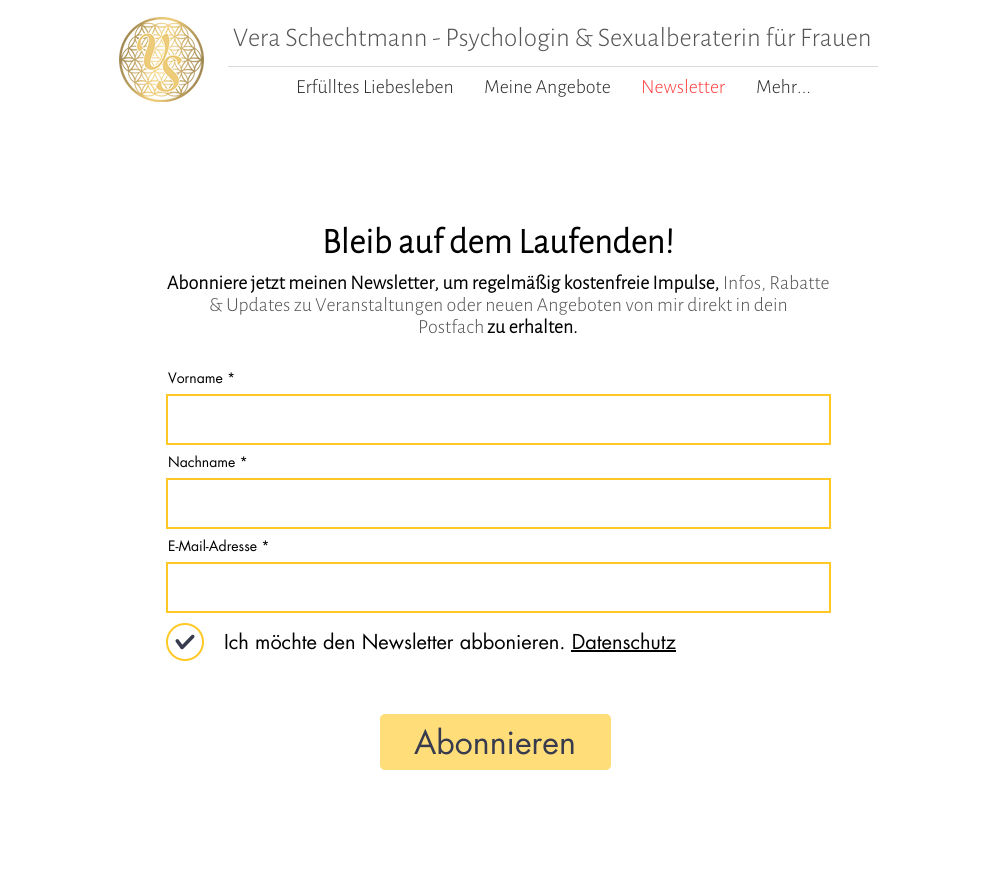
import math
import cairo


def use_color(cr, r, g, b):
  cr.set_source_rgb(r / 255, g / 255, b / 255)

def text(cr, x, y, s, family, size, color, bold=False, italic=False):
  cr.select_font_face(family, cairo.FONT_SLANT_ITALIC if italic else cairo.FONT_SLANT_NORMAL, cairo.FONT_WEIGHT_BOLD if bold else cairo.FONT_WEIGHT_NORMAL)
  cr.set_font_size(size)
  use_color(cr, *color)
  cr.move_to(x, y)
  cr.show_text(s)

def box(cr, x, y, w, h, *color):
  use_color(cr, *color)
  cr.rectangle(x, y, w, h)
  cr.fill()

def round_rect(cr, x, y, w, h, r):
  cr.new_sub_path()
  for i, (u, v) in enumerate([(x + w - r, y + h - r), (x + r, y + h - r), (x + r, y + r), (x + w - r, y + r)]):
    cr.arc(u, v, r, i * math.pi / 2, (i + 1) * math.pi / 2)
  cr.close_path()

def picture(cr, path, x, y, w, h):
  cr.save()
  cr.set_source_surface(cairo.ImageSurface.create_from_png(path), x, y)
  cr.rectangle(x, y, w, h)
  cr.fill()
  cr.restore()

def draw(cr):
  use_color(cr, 255, 255, 255)
  cr.paint()
  picture(cr, "img_01.png", 119, 17, 85, 85)
  box(cr, 228, 66, 650, 1, 217, 217, 217)
  cr.rectangle(167, 395, 663, 49)
  use_color(cr, 255, 200, 36)
  cr.stroke()
  cr.rectangle(167, 479, 663, 49)
  cr.stroke()
  cr.rectangle(167, 563, 663, 49)
  cr.stroke()
  cr.arc(185, 642, 18, 0, 2 * math.pi)
  cr.stroke()
  box(cr, 571, 650, 105, 2, 0, 0, 0)
  picture(cr, "img_02.png", 175, 634, 20, 16)
  use_color(cr, 255, 222, 122)
  round_rect(cr, 380, 714, 231, 56, 5)
  cr.fill()
  text(cr, 233, 46, "Vera Schechtmann - Psychologin & Sexualberaterin für Frauen", "Alegreya Sans Light", 27, (85, 85, 85))
  text(cr, 296, 93, "Erfülltes Liebesleben", "Alegreya Sans Light", 20, (42, 42, 42))
  text(cr, 484, 93, "Meine Angebote", "Alegreya Sans Light", 20, (42, 42, 42))
  text(cr, 641, 93, "Newsletter", "Alegreya Sans Light", 20, (255, 64, 64))
  text(cr, 756, 93, "Mehr...", "Alegreya Sans Light", 20, (42, 42, 42))
  text(cr, 322, 253, "Bleib auf dem Laufenden!", "Alegreya Sans", 36, (0, 0, 0), bold=True)
  text(cr, 167, 289, "Abonniere jetzt meinen Newsletter, um regelmäßig kostenfreie Impulse,", "Alegreya Sans", 20, (0, 0, 0), bold=True)
  text(cr, 723, 289, "Infos, Rabatte", "Alegreya Sans Light", 20, (85, 85, 85))
  text(cr, 209, 311, "& Updates zu Veranstaltungen oder neuen Angeboten von mir direkt in dein", "Alegreya Sans Light", 20, (85, 85, 85))
  text(cr, 418, 333, "Postfach", "Alegreya Sans Light", 20, (85, 85, 85))
  text(cr, 487, 333, "zu erhalten.", "Alegreya Sans", 20, (0, 0, 0), bold=True)
  text(cr, 168, 383, "Vorname *", "futura", 14, (0, 0, 0))
  text(cr, 168, 467, "Nachname *", "futura", 14, (0, 0, 0))
  text(cr, 168, 551, "E-Mail-Adresse *", "futura", 14, (0, 0, 0))
  text(cr, 224, 649, "Ich möchte den Newsletter abbonieren. Datenschutz", "futura", 20, (0, 0, 0))
  text(cr, 414, 754, "Abonnieren", "futura", 32, (55, 59, 77))


surface = cairo.ImageSurface(cairo.FORMAT_RGB24, 997, 879)
cr = cairo.Context(surface)
options = cairo.FontOptions()
options.set_hint_metrics(cairo.HINT_METRICS_OFF)
options.set_hint_style(cairo.HINT_STYLE_NONE)
cr.set_font_options(options)
cr.set_miter_limit(4)
draw(cr)
surface.write_to_png("out.png")
